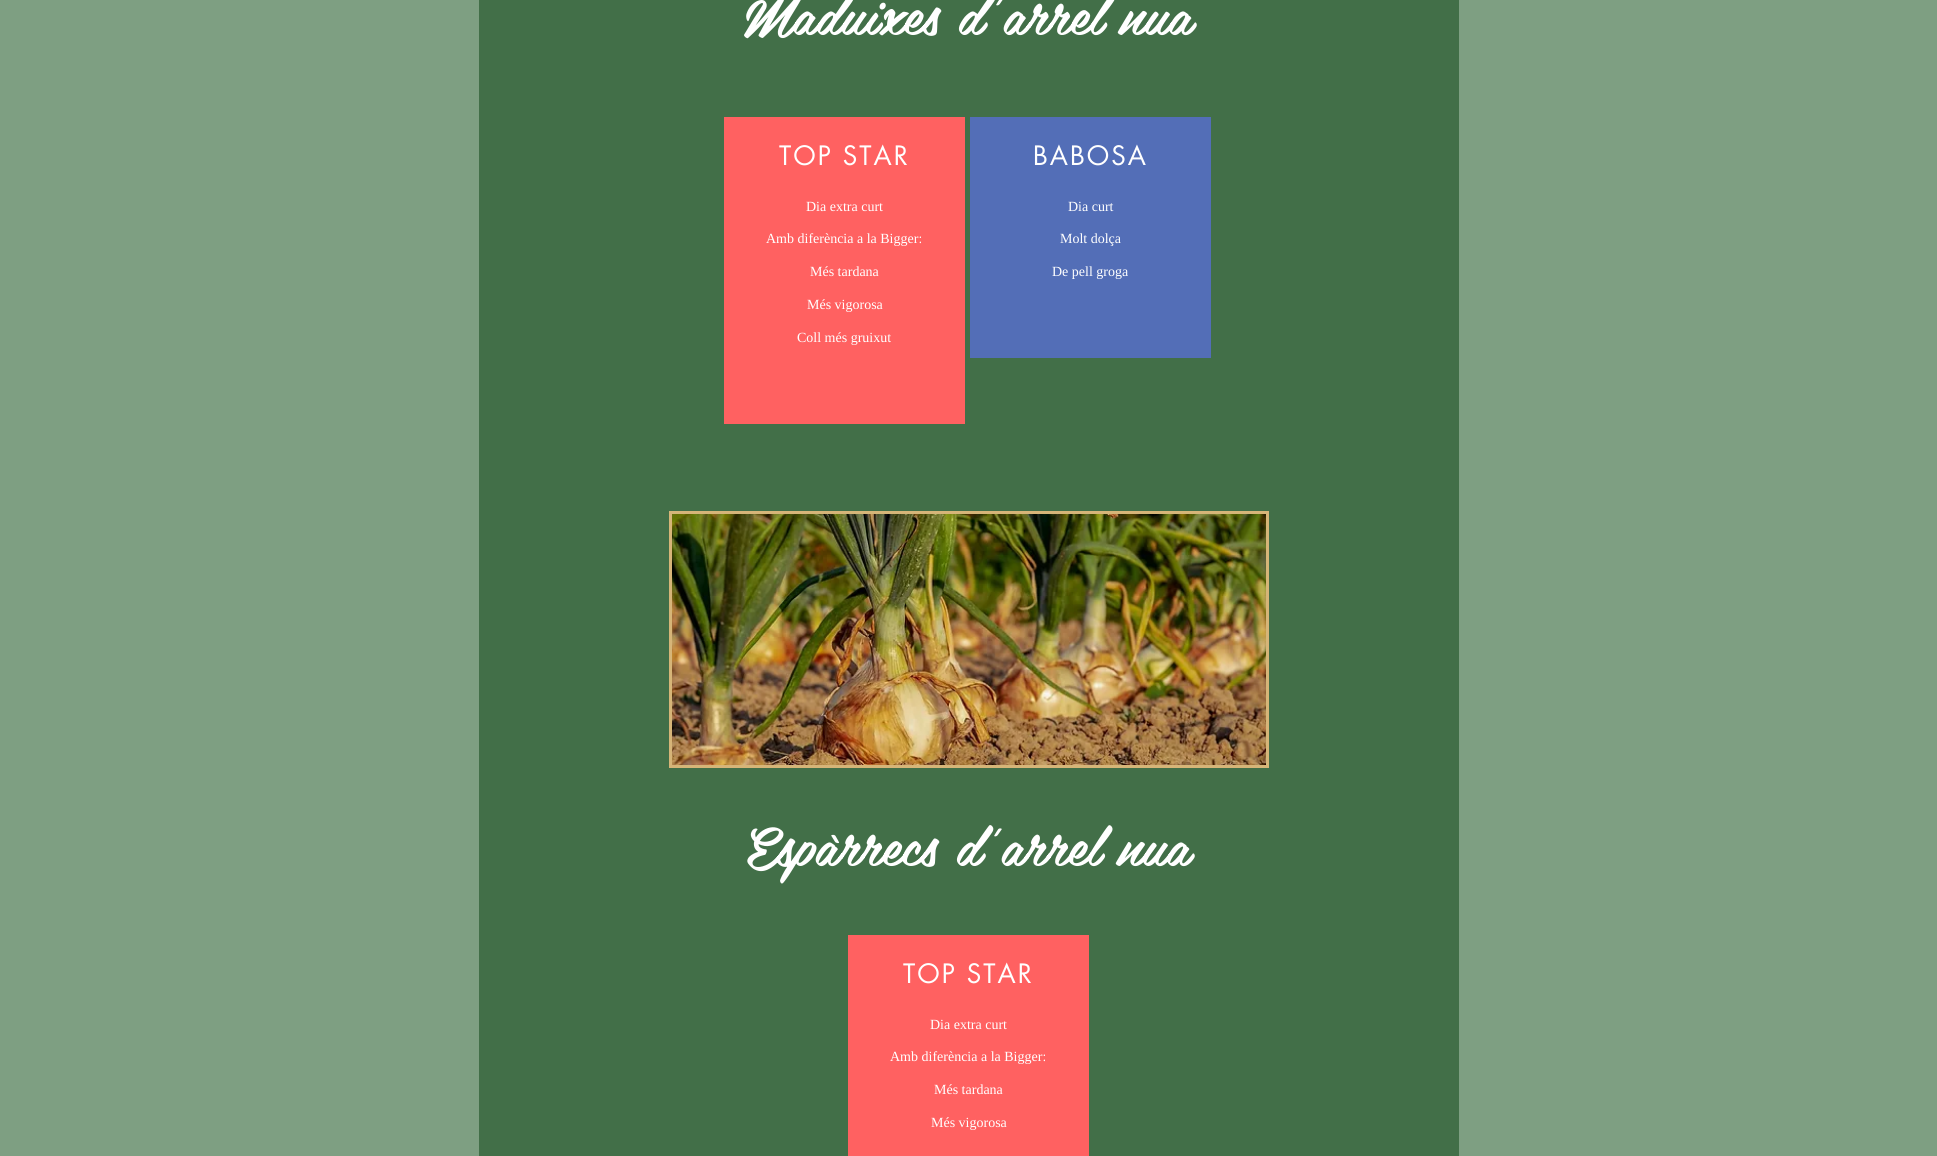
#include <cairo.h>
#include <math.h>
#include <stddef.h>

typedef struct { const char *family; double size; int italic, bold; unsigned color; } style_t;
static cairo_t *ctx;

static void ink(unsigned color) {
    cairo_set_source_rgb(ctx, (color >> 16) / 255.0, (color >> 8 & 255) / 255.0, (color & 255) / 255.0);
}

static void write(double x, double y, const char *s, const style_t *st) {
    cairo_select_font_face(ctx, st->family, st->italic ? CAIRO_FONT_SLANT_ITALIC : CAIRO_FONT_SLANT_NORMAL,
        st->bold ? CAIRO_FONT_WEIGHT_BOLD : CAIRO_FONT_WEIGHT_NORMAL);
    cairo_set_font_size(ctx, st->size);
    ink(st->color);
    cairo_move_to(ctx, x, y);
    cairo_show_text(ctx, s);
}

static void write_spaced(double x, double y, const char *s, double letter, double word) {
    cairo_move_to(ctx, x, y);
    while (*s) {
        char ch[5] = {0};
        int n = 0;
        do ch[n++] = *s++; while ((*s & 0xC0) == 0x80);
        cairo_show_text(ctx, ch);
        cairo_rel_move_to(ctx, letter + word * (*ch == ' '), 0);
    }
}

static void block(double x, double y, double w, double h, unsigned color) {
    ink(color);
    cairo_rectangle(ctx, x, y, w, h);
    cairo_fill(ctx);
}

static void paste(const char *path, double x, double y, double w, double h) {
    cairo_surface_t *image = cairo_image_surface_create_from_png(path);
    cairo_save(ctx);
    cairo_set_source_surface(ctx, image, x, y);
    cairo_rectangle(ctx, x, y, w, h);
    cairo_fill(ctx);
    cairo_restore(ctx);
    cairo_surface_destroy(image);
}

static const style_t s1 = {"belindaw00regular", 55, 0, 0, 0xffffff};
static const style_t s2 = {"Liberation Serif", 14, 0, 0, 0xffffff};

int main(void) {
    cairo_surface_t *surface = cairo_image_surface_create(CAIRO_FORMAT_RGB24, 1937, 1156);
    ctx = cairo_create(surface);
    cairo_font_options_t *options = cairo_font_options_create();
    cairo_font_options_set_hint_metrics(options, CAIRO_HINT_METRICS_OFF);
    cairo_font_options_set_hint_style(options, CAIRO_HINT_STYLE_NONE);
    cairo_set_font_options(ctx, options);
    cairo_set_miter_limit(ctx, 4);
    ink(0x7e9f82);
    cairo_paint(ctx);
    block(479, 0, 980, 1156, 0x426f48);
    write(743, 35, "Maduixes d'arrel nua", &s1);
    block(724, 117, 241, 307, 0xff6161);
    cairo_select_font_face(ctx, "futura", CAIRO_FONT_SLANT_NORMAL, CAIRO_FONT_WEIGHT_NORMAL);
    cairo_set_font_size(ctx, 26);
    ink(0xffffff);
    write_spaced(779, 165, "TOP STAR", 2, 0);
    write(806, 211, "Dia extra curt", &s2);
    write(766, 243, "Amb diferència a la Bigger:", &s2);
    write(810, 276, "Més tardana", &s2);
    write(807, 309, "Més vigorosa", &s2);
    write(797, 342, "Coll més gruixut", &s2);
    block(970, 117, 241, 241, 0x536eb7);
    cairo_select_font_face(ctx, "futura", CAIRO_FONT_SLANT_NORMAL, CAIRO_FONT_WEIGHT_NORMAL);
    cairo_set_font_size(ctx, 26);
    ink(0xffffff);
    write_spaced(1033, 165, "BABOSA", 2, 0);
    write(1068, 211, "Dia curt", &s2);
    write(1060, 243, "Molt dolça", &s2);
    write(1052, 276, "De pell groga", &s2);
    block(669, 511, 600, 257, 0xd6b578);
    paste("pic1.png", 672, 514, 594, 251);
    write(746, 866, "Espàrrecs d'arrel nua", &s1);
    block(848, 935, 241, 221, 0xff6161);
    cairo_select_font_face(ctx, "futura", CAIRO_FONT_SLANT_NORMAL, CAIRO_FONT_WEIGHT_NORMAL);
    cairo_set_font_size(ctx, 26);
    ink(0xffffff);
    write_spaced(903, 983, "TOP STAR", 2, 0);
    write(930, 1029, "Dia extra curt", &s2);
    write(890, 1061, "Amb diferència a la Bigger:", &s2);
    write(934, 1094, "Més tardana", &s2);
    write(931, 1127, "Més vigorosa", &s2);
    cairo_surface_write_to_png(surface, "screenshot.png");
    cairo_font_options_destroy(options);
    cairo_destroy(ctx);
    cairo_surface_destroy(surface);
    return 0;
}
